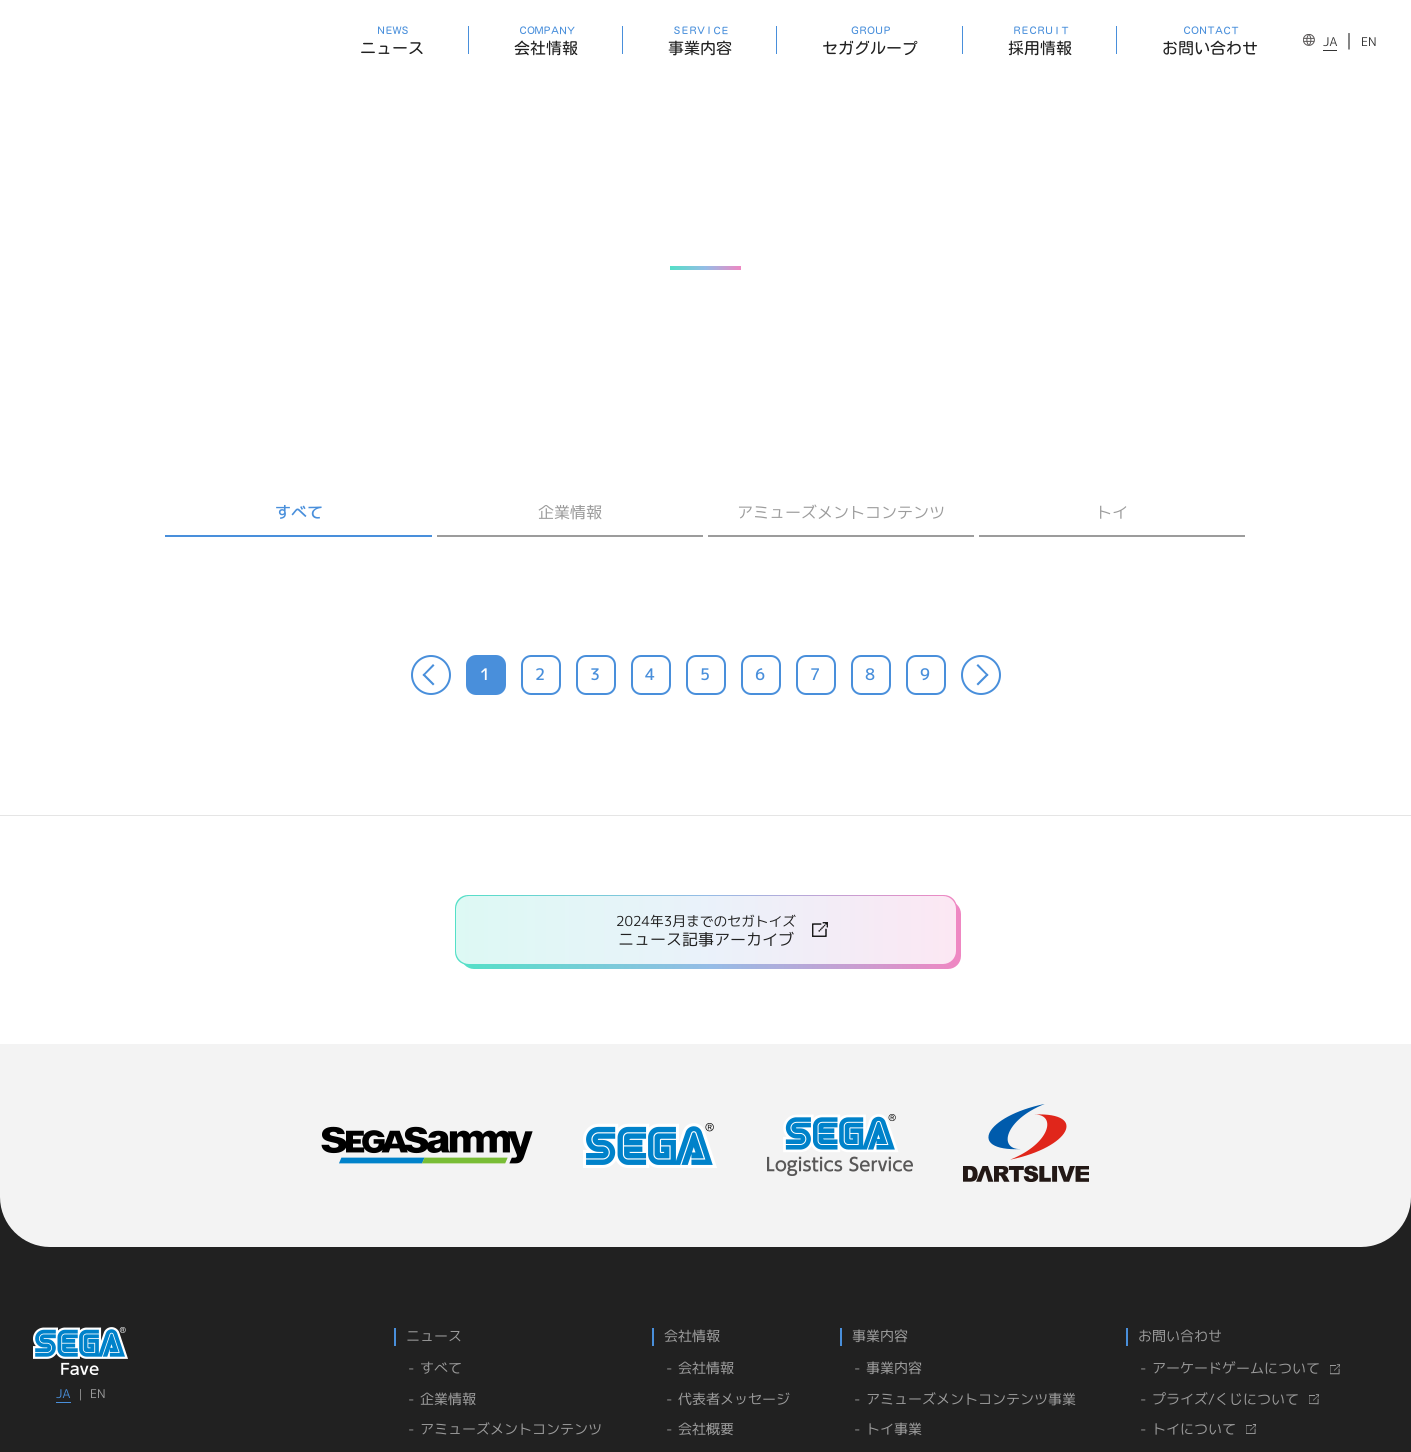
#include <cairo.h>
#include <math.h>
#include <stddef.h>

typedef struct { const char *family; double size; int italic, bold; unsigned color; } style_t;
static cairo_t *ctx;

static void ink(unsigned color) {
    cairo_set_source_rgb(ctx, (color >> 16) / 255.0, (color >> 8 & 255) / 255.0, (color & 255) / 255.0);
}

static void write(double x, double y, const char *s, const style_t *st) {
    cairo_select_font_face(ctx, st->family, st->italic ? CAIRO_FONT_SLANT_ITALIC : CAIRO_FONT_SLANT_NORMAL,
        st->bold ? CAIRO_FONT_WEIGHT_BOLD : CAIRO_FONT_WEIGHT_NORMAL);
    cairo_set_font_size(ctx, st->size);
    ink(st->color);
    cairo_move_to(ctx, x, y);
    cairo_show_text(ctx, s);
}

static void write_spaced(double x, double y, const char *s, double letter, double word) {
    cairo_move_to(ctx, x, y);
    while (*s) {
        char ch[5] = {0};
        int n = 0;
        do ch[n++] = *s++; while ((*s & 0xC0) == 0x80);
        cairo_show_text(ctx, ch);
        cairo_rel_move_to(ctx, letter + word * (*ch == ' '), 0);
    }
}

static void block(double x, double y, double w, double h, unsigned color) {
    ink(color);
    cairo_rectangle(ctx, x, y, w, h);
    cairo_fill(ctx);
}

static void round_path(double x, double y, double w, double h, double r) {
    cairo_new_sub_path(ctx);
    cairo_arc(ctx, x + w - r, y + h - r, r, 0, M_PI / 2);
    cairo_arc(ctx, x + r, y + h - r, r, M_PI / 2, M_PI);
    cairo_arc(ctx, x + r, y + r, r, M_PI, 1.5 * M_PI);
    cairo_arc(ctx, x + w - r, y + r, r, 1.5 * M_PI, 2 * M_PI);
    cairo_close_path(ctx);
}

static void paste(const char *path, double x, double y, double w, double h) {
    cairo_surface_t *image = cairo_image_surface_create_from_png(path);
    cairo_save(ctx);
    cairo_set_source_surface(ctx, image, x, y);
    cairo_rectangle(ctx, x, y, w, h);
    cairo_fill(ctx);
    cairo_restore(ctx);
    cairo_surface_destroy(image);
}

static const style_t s1 = {"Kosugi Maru", 16, 0, 0, 0x212121};
static const style_t s2 = {"M PLUS 1p", 12, 0, 0, 0x333333};
static const style_t s3 = {"M PLUS 1p", 16, 0, 0, 0x333333};
static const style_t s4 = {"M PLUS 1p Medium", 16, 0, 0, 0x498fdb};
static const style_t s5 = {"M PLUS 1p", 16, 0, 0, 0x9c9c9c};
static const style_t s6 = {"M PLUS 1p Medium", 16, 0, 0, 0xffffff};
static const style_t s7 = {"M PLUS 1p", 13.75, 0, 0, 0x212121};
static const style_t s8 = {"M PLUS 1p", 16, 0, 0, 0x212121};
static const style_t s9 = {"M PLUS 1p", 12, 0, 0, 0x498fdb};
static const style_t s10 = {"M PLUS 1p", 11, 0, 0, 0x9c9c9c};
static const style_t s11 = {"M PLUS 1p", 12, 0, 0, 0x9c9c9c};
static const style_t s12 = {"M PLUS 1p", 14, 0, 0, 0x9c9c9c};

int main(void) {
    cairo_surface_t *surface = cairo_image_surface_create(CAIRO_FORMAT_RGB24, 1411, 1452);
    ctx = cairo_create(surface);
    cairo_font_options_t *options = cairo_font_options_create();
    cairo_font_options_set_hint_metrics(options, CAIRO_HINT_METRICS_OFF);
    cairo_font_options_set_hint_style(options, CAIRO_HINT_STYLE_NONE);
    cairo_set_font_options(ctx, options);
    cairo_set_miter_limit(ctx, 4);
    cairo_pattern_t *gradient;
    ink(0xffffff);
    cairo_paint(ctx);
    cairo_select_font_face(ctx, "Kosugi Maru", CAIRO_FONT_SLANT_NORMAL, CAIRO_FONT_WEIGHT_NORMAL);
    cairo_set_font_size(ctx, 10);
    ink(0x498fdb);
    cairo_save(ctx);
    cairo_translate(ctx, 376, 34);
    cairo_rotate(ctx, 0.2 * M_PI / 180);
    write_spaced(0, 0, "ＮＥＷＳ", -2, 0);
    cairo_restore(ctx);
    cairo_save(ctx);
    cairo_translate(ctx, 360, 54);
    cairo_rotate(ctx, 0.1 * M_PI / 180);
    write(0, 0, "ニュース", &s1);
    cairo_restore(ctx);
    block(468, 26, 1, 28, 0x498fdb);
    cairo_select_font_face(ctx, "Kosugi Maru", CAIRO_FONT_SLANT_NORMAL, CAIRO_FONT_WEIGHT_NORMAL);
    cairo_set_font_size(ctx, 10);
    cairo_save(ctx);
    cairo_translate(ctx, 518, 34);
    cairo_rotate(ctx, 0.2 * M_PI / 180);
    write_spaced(0, 0, "ＣＯＭＰＡＮＹ", -2, 0);
    cairo_restore(ctx);
    cairo_save(ctx);
    cairo_translate(ctx, 514, 54);
    cairo_rotate(ctx, 0.1 * M_PI / 180);
    write(0, 0, "会社情報", &s1);
    cairo_restore(ctx);
    block(622, 26, 1, 28, 0x498fdb);
    cairo_select_font_face(ctx, "Kosugi Maru", CAIRO_FONT_SLANT_NORMAL, CAIRO_FONT_WEIGHT_NORMAL);
    cairo_set_font_size(ctx, 10);
    cairo_save(ctx);
    cairo_translate(ctx, 672, 34);
    cairo_rotate(ctx, 0.2 * M_PI / 180);
    write_spaced(0, 0, "ＳＥＲＶＩＣＥ", -2, 0);
    cairo_restore(ctx);
    cairo_save(ctx);
    cairo_translate(ctx, 668, 54);
    cairo_rotate(ctx, 0.1 * M_PI / 180);
    write(0, 0, "事業内容", &s1);
    cairo_restore(ctx);
    block(776, 26, 1, 28, 0x498fdb);
    cairo_select_font_face(ctx, "Kosugi Maru", CAIRO_FONT_SLANT_NORMAL, CAIRO_FONT_WEIGHT_NORMAL);
    cairo_set_font_size(ctx, 10);
    cairo_save(ctx);
    cairo_translate(ctx, 850, 34);
    cairo_rotate(ctx, 0.2 * M_PI / 180);
    write_spaced(0, 0, "ＧＲＯＵＰ", -2, 0);
    cairo_restore(ctx);
    cairo_save(ctx);
    cairo_translate(ctx, 822, 54);
    cairo_rotate(ctx, 0.1 * M_PI / 180);
    write(0, 0, "セガグループ", &s1);
    cairo_restore(ctx);
    block(962, 26, 1, 28, 0x498fdb);
    cairo_select_font_face(ctx, "Kosugi Maru", CAIRO_FONT_SLANT_NORMAL, CAIRO_FONT_WEIGHT_NORMAL);
    cairo_set_font_size(ctx, 10);
    cairo_save(ctx);
    cairo_translate(ctx, 1012, 34);
    cairo_rotate(ctx, 0.2 * M_PI / 180);
    write_spaced(0, 0, "ＲＥＣＲＵＩＴ", -2, 0);
    cairo_restore(ctx);
    cairo_save(ctx);
    cairo_translate(ctx, 1008, 54);
    cairo_rotate(ctx, 0.1 * M_PI / 180);
    write(0, 0, "採用情報", &s1);
    cairo_restore(ctx);
    block(1116, 26, 1, 28, 0x498fdb);
    cairo_select_font_face(ctx, "Kosugi Maru", CAIRO_FONT_SLANT_NORMAL, CAIRO_FONT_WEIGHT_NORMAL);
    cairo_set_font_size(ctx, 10);
    cairo_save(ctx);
    cairo_translate(ctx, 1182, 34);
    cairo_rotate(ctx, 0.2 * M_PI / 180);
    write_spaced(0, 0, "ＣＯＮＴＡＣＴ", -2, 0);
    cairo_restore(ctx);
    cairo_save(ctx);
    cairo_translate(ctx, 1162, 54);
    cairo_rotate(ctx, 0.1 * M_PI / 180);
    write(0, 0, "お問い合わせ", &s1);
    cairo_restore(ctx);
    paste("pic1.png", 1303, 34, 12, 12);
    write(1323, 46, "JA", &s2);
    block(1323, 50, 14, 1, 0x333333);
    write(1341, 46, "｜", &s3);
    write(1361, 46, "EN", &s2);
    gradient = cairo_pattern_create_linear(670, 268, 741, 268);
    cairo_pattern_add_color_stop_rgba(gradient, 0, 0.329, 0.878, 0.78, 1);
    cairo_pattern_add_color_stop_rgba(gradient, 0.5, 0.584, 0.737, 0.902, 1);
    cairo_pattern_add_color_stop_rgba(gradient, 1, 0.937, 0.529, 0.761, 1);
    cairo_set_source(ctx, gradient);
    cairo_pattern_destroy(gradient);
    cairo_rectangle(ctx, 670, 266, 71, 4);
    cairo_fill(ctx);
    block(165, 535, 267, 2, 0x498fdb);
    cairo_save(ctx);
    cairo_translate(ctx, 275, 518);
    cairo_rotate(ctx, 0.1 * M_PI / 180);
    write(0, 0, "すべて", &s4);
    cairo_restore(ctx);
    block(437, 535, 266, 2, 0x9c9c9c);
    cairo_save(ctx);
    cairo_translate(ctx, 538, 518);
    cairo_rotate(ctx, 0.1 * M_PI / 180);
    write(0, 0, "企業情報", &s5);
    cairo_restore(ctx);
    block(708, 535, 266, 2, 0x9c9c9c);
    cairo_save(ctx);
    cairo_translate(ctx, 737, 518);
    cairo_rotate(ctx, 0.1 * M_PI / 180);
    write(0, 0, "アミューズメントコンテンツ", &s5);
    cairo_restore(ctx);
    block(979, 535, 266, 2, 0x9c9c9c);
    cairo_save(ctx);
    cairo_translate(ctx, 1096, 518);
    cairo_rotate(ctx, 0.1 * M_PI / 180);
    write(0, 0, "トイ", &s5);
    cairo_restore(ctx);
    cairo_new_path(ctx);
    cairo_arc(ctx, 431, 675, 19, 0, 2 * M_PI);
    ink(0x498fdb);
    cairo_stroke(ctx);
    cairo_new_path(ctx);
    cairo_move_to(ctx, 424, 673.5);
    cairo_line_to(ctx, 434.5, 684);
    cairo_line_to(ctx, 433, 685.5);
    cairo_line_to(ctx, 422.5, 675);
    cairo_close_path(ctx);
    cairo_fill(ctx);
    cairo_new_path(ctx);
    cairo_move_to(ctx, 433, 664);
    cairo_line_to(ctx, 434.5, 665.5);
    cairo_line_to(ctx, 424, 676);
    cairo_line_to(ctx, 422.5, 675);
    cairo_close_path(ctx);
    cairo_fill(ctx);
    round_path(467, 656, 38, 38, 9);
    cairo_fill_preserve(ctx);
    cairo_stroke(ctx);
    write(480, 680, "1", &s6);
    round_path(522, 656, 38, 38, 9);
    ink(0x498fdb);
    cairo_stroke(ctx);
    write(535, 680, "2", &s4);
    round_path(577, 656, 38, 38, 9);
    cairo_stroke(ctx);
    write(590, 680, "3", &s4);
    round_path(632, 656, 38, 38, 9);
    cairo_stroke(ctx);
    write(645, 680, "4", &s4);
    round_path(687, 656, 38, 38, 9);
    cairo_stroke(ctx);
    write(700, 680, "5", &s4);
    round_path(742, 656, 38, 38, 9);
    cairo_stroke(ctx);
    write(755, 680, "6", &s4);
    round_path(797, 656, 38, 38, 9);
    cairo_stroke(ctx);
    write(810, 680, "7", &s4);
    round_path(852, 656, 38, 38, 9);
    cairo_stroke(ctx);
    write(865, 680, "8", &s4);
    round_path(907, 656, 38, 38, 9);
    cairo_stroke(ctx);
    write(920, 680, "9", &s4);
    cairo_new_path(ctx);
    cairo_arc(ctx, 981, 675, 19, 0, 2 * M_PI);
    cairo_stroke(ctx);
    cairo_new_path(ctx);
    cairo_move_to(ctx, 978, 664);
    cairo_line_to(ctx, 988.5, 675);
    cairo_line_to(ctx, 987, 676);
    cairo_line_to(ctx, 976.5, 665.5);
    cairo_close_path(ctx);
    cairo_fill(ctx);
    cairo_new_path(ctx);
    cairo_move_to(ctx, 987, 673.5);
    cairo_line_to(ctx, 988.5, 675);
    cairo_line_to(ctx, 978, 685.5);
    cairo_line_to(ctx, 976.5, 684);
    cairo_close_path(ctx);
    cairo_fill(ctx);
    block(0, 815, 1411, 1, 0xe5e5e5);
    gradient = cairo_pattern_create_linear(461, 935, 961, 935);
    cairo_pattern_add_color_stop_rgba(gradient, 0, 0.329, 0.878, 0.78, 1);
    cairo_pattern_add_color_stop_rgba(gradient, 0.5, 0.584, 0.737, 0.902, 1);
    cairo_pattern_add_color_stop_rgba(gradient, 1, 0.937, 0.529, 0.761, 1);
    cairo_set_source(ctx, gradient);
    cairo_pattern_destroy(gradient);
    round_path(461, 901, 500, 68, 13);
    cairo_fill(ctx);
    gradient = cairo_pattern_create_linear(455, 930, 957, 930);
    cairo_pattern_add_color_stop_rgba(gradient, 0, 0.329, 0.878, 0.78, 1);
    cairo_pattern_add_color_stop_rgba(gradient, 0.5, 0.584, 0.737, 0.902, 1);
    cairo_pattern_add_color_stop_rgba(gradient, 1, 0.937, 0.529, 0.761, 1);
    cairo_set_source(ctx, gradient);
    cairo_pattern_destroy(gradient);
    round_path(455, 895, 502, 70, 13);
    cairo_fill(ctx);
    cairo_set_source_rgba(ctx, 1, 1, 1, 0.8);
    round_path(456, 896, 500, 68, 13);
    cairo_fill(ctx);
    cairo_save(ctx);
    cairo_translate(ctx, 616, 926);
    cairo_rotate(ctx, 0.1 * M_PI / 180);
    write(0, 0, "2024年3月までのセガトイズ", &s7);
    cairo_restore(ctx);
    cairo_save(ctx);
    cairo_translate(ctx, 618, 945);
    cairo_rotate(ctx, 0.1 * M_PI / 180);
    write(0, 0, "ニュース記事アーカイブ", &s8);
    cairo_restore(ctx);
    paste("pic2.png", 812, 922, 16, 15);
    block(0, 1197, 1411, 255, 0x212121);
    ink(0xf3f3f3);
    cairo_new_path(ctx);
    cairo_move_to(ctx, 0, 1044);
    cairo_line_to(ctx, 1411, 1044);
    cairo_line_to(ctx, 1411, 1197);
    cairo_curve_to(ctx, 1411, 1224.5, 1388.5, 1247, 1361, 1247);
    cairo_line_to(ctx, 50, 1247);
    cairo_curve_to(ctx, 22.5, 1247, 0, 1224.5, 0, 1197);
    cairo_close_path(ctx);
    cairo_fill(ctx);
    paste("pic3.png", 321, 1126, 212, 38);
    paste("pic4.png", 583, 1123, 134, 45);
    paste("pic5.png", 767, 1114, 146, 62);
    paste("pic6.png", 963, 1104, 126, 78);
    paste("pic7.png", 33, 1327, 95, 48);
    write(56, 1398, "JA", &s9);
    block(56, 1402, 15, 1, 0x498fdb);
    write(75, 1398, "｜", &s10);
    write(90, 1398, "EN", &s11);
    block(394, 1328, 2, 18, 0x498fdb);
    cairo_save(ctx);
    cairo_translate(ctx, 406, 1341);
    cairo_rotate(ctx, 0.1 * M_PI / 180);
    write(0, 0, "ニュース", &s12);
    cairo_restore(ctx);
    cairo_save(ctx);
    cairo_translate(ctx, 408, 1373);
    cairo_rotate(ctx, 0.1 * M_PI / 180);
    write(0, 0, "-", &s12);
    cairo_restore(ctx);
    cairo_save(ctx);
    cairo_translate(ctx, 420, 1373);
    cairo_rotate(ctx, 0.1 * M_PI / 180);
    write(0, 0, "すべて", &s12);
    cairo_restore(ctx);
    cairo_save(ctx);
    cairo_translate(ctx, 408, 1404);
    cairo_rotate(ctx, 0.1 * M_PI / 180);
    write(0, 0, "-", &s12);
    cairo_restore(ctx);
    cairo_save(ctx);
    cairo_translate(ctx, 420, 1404);
    cairo_rotate(ctx, 0.1 * M_PI / 180);
    write(0, 0, "企業情報", &s12);
    cairo_restore(ctx);
    cairo_save(ctx);
    cairo_translate(ctx, 408, 1434);
    cairo_rotate(ctx, 0.1 * M_PI / 180);
    write(0, 0, "-", &s12);
    cairo_restore(ctx);
    cairo_save(ctx);
    cairo_translate(ctx, 420, 1434);
    cairo_rotate(ctx, 0.1 * M_PI / 180);
    write(0, 0, "アミューズメントコンテンツ", &s12);
    cairo_restore(ctx);
    block(652, 1328, 2, 18, 0x498fdb);
    cairo_save(ctx);
    cairo_translate(ctx, 664, 1341);
    cairo_rotate(ctx, 0.1 * M_PI / 180);
    write(0, 0, "会社情報", &s12);
    cairo_restore(ctx);
    cairo_save(ctx);
    cairo_translate(ctx, 666, 1373);
    cairo_rotate(ctx, 0.1 * M_PI / 180);
    write(0, 0, "-", &s12);
    cairo_restore(ctx);
    cairo_save(ctx);
    cairo_translate(ctx, 678, 1373);
    cairo_rotate(ctx, 0.1 * M_PI / 180);
    write(0, 0, "会社情報", &s12);
    cairo_restore(ctx);
    cairo_save(ctx);
    cairo_translate(ctx, 666, 1404);
    cairo_rotate(ctx, 0.1 * M_PI / 180);
    write(0, 0, "-", &s12);
    cairo_restore(ctx);
    cairo_save(ctx);
    cairo_translate(ctx, 678, 1404);
    cairo_rotate(ctx, 0.1 * M_PI / 180);
    write(0, 0, "代表者メッセージ", &s12);
    cairo_restore(ctx);
    cairo_save(ctx);
    cairo_translate(ctx, 666, 1434);
    cairo_rotate(ctx, 0.1 * M_PI / 180);
    write(0, 0, "-", &s12);
    cairo_restore(ctx);
    cairo_save(ctx);
    cairo_translate(ctx, 678, 1434);
    cairo_rotate(ctx, 0.1 * M_PI / 180);
    write(0, 0, "会社概要", &s12);
    cairo_restore(ctx);
    block(840, 1328, 2, 18, 0x498fdb);
    cairo_save(ctx);
    cairo_translate(ctx, 852, 1341);
    cairo_rotate(ctx, 0.1 * M_PI / 180);
    write(0, 0, "事業内容", &s12);
    cairo_restore(ctx);
    cairo_save(ctx);
    cairo_translate(ctx, 854, 1373);
    cairo_rotate(ctx, 0.1 * M_PI / 180);
    write(0, 0, "-", &s12);
    cairo_restore(ctx);
    cairo_save(ctx);
    cairo_translate(ctx, 866, 1373);
    cairo_rotate(ctx, 0.1 * M_PI / 180);
    write(0, 0, "事業内容", &s12);
    cairo_restore(ctx);
    cairo_save(ctx);
    cairo_translate(ctx, 854, 1404);
    cairo_rotate(ctx, 0.1 * M_PI / 180);
    write(0, 0, "-", &s12);
    cairo_restore(ctx);
    cairo_save(ctx);
    cairo_translate(ctx, 866, 1404);
    cairo_rotate(ctx, 0.1 * M_PI / 180);
    write(0, 0, "アミューズメントコンテンツ事業", &s12);
    cairo_restore(ctx);
    cairo_save(ctx);
    cairo_translate(ctx, 854, 1434);
    cairo_rotate(ctx, 0.1 * M_PI / 180);
    write(0, 0, "-", &s12);
    cairo_restore(ctx);
    cairo_save(ctx);
    cairo_translate(ctx, 866, 1434);
    cairo_rotate(ctx, 0.1 * M_PI / 180);
    write(0, 0, "トイ事業", &s12);
    cairo_restore(ctx);
    block(1126, 1328, 2, 18, 0x498fdb);
    cairo_save(ctx);
    cairo_translate(ctx, 1138, 1341);
    cairo_rotate(ctx, 0.1 * M_PI / 180);
    write(0, 0, "お問い合わせ", &s12);
    cairo_restore(ctx);
    cairo_save(ctx);
    cairo_translate(ctx, 1140, 1373);
    cairo_rotate(ctx, 0.1 * M_PI / 180);
    write(0, 0, "-", &s12);
    cairo_restore(ctx);
    cairo_save(ctx);
    cairo_translate(ctx, 1152, 1373);
    cairo_rotate(ctx, 0.1 * M_PI / 180);
    write(0, 0, "アーケードゲームについて", &s12);
    cairo_restore(ctx);
    paste("pic8.png", 1330, 1364, 10, 11);
    cairo_save(ctx);
    cairo_translate(ctx, 1140, 1404);
    cairo_rotate(ctx, 0.1 * M_PI / 180);
    write(0, 0, "-", &s12);
    cairo_restore(ctx);
    cairo_save(ctx);
    cairo_translate(ctx, 1152, 1404);
    cairo_rotate(ctx, 0.1 * M_PI / 180);
    write(0, 0, "プライズ/くじについて", &s12);
    cairo_restore(ctx);
    paste("pic9.png", 1309, 1394, 10, 11);
    cairo_save(ctx);
    cairo_translate(ctx, 1140, 1434);
    cairo_rotate(ctx, 0.1 * M_PI / 180);
    write(0, 0, "-", &s12);
    cairo_restore(ctx);
    cairo_save(ctx);
    cairo_translate(ctx, 1152, 1434);
    cairo_rotate(ctx, 0.1 * M_PI / 180);
    write(0, 0, "トイについて", &s12);
    cairo_restore(ctx);
    paste("pic10.png", 1246, 1424, 10, 10);
    cairo_surface_write_to_png(surface, "screenshot.png");
    cairo_font_options_destroy(options);
    cairo_destroy(ctx);
    cairo_surface_destroy(surface);
    return 0;
}
